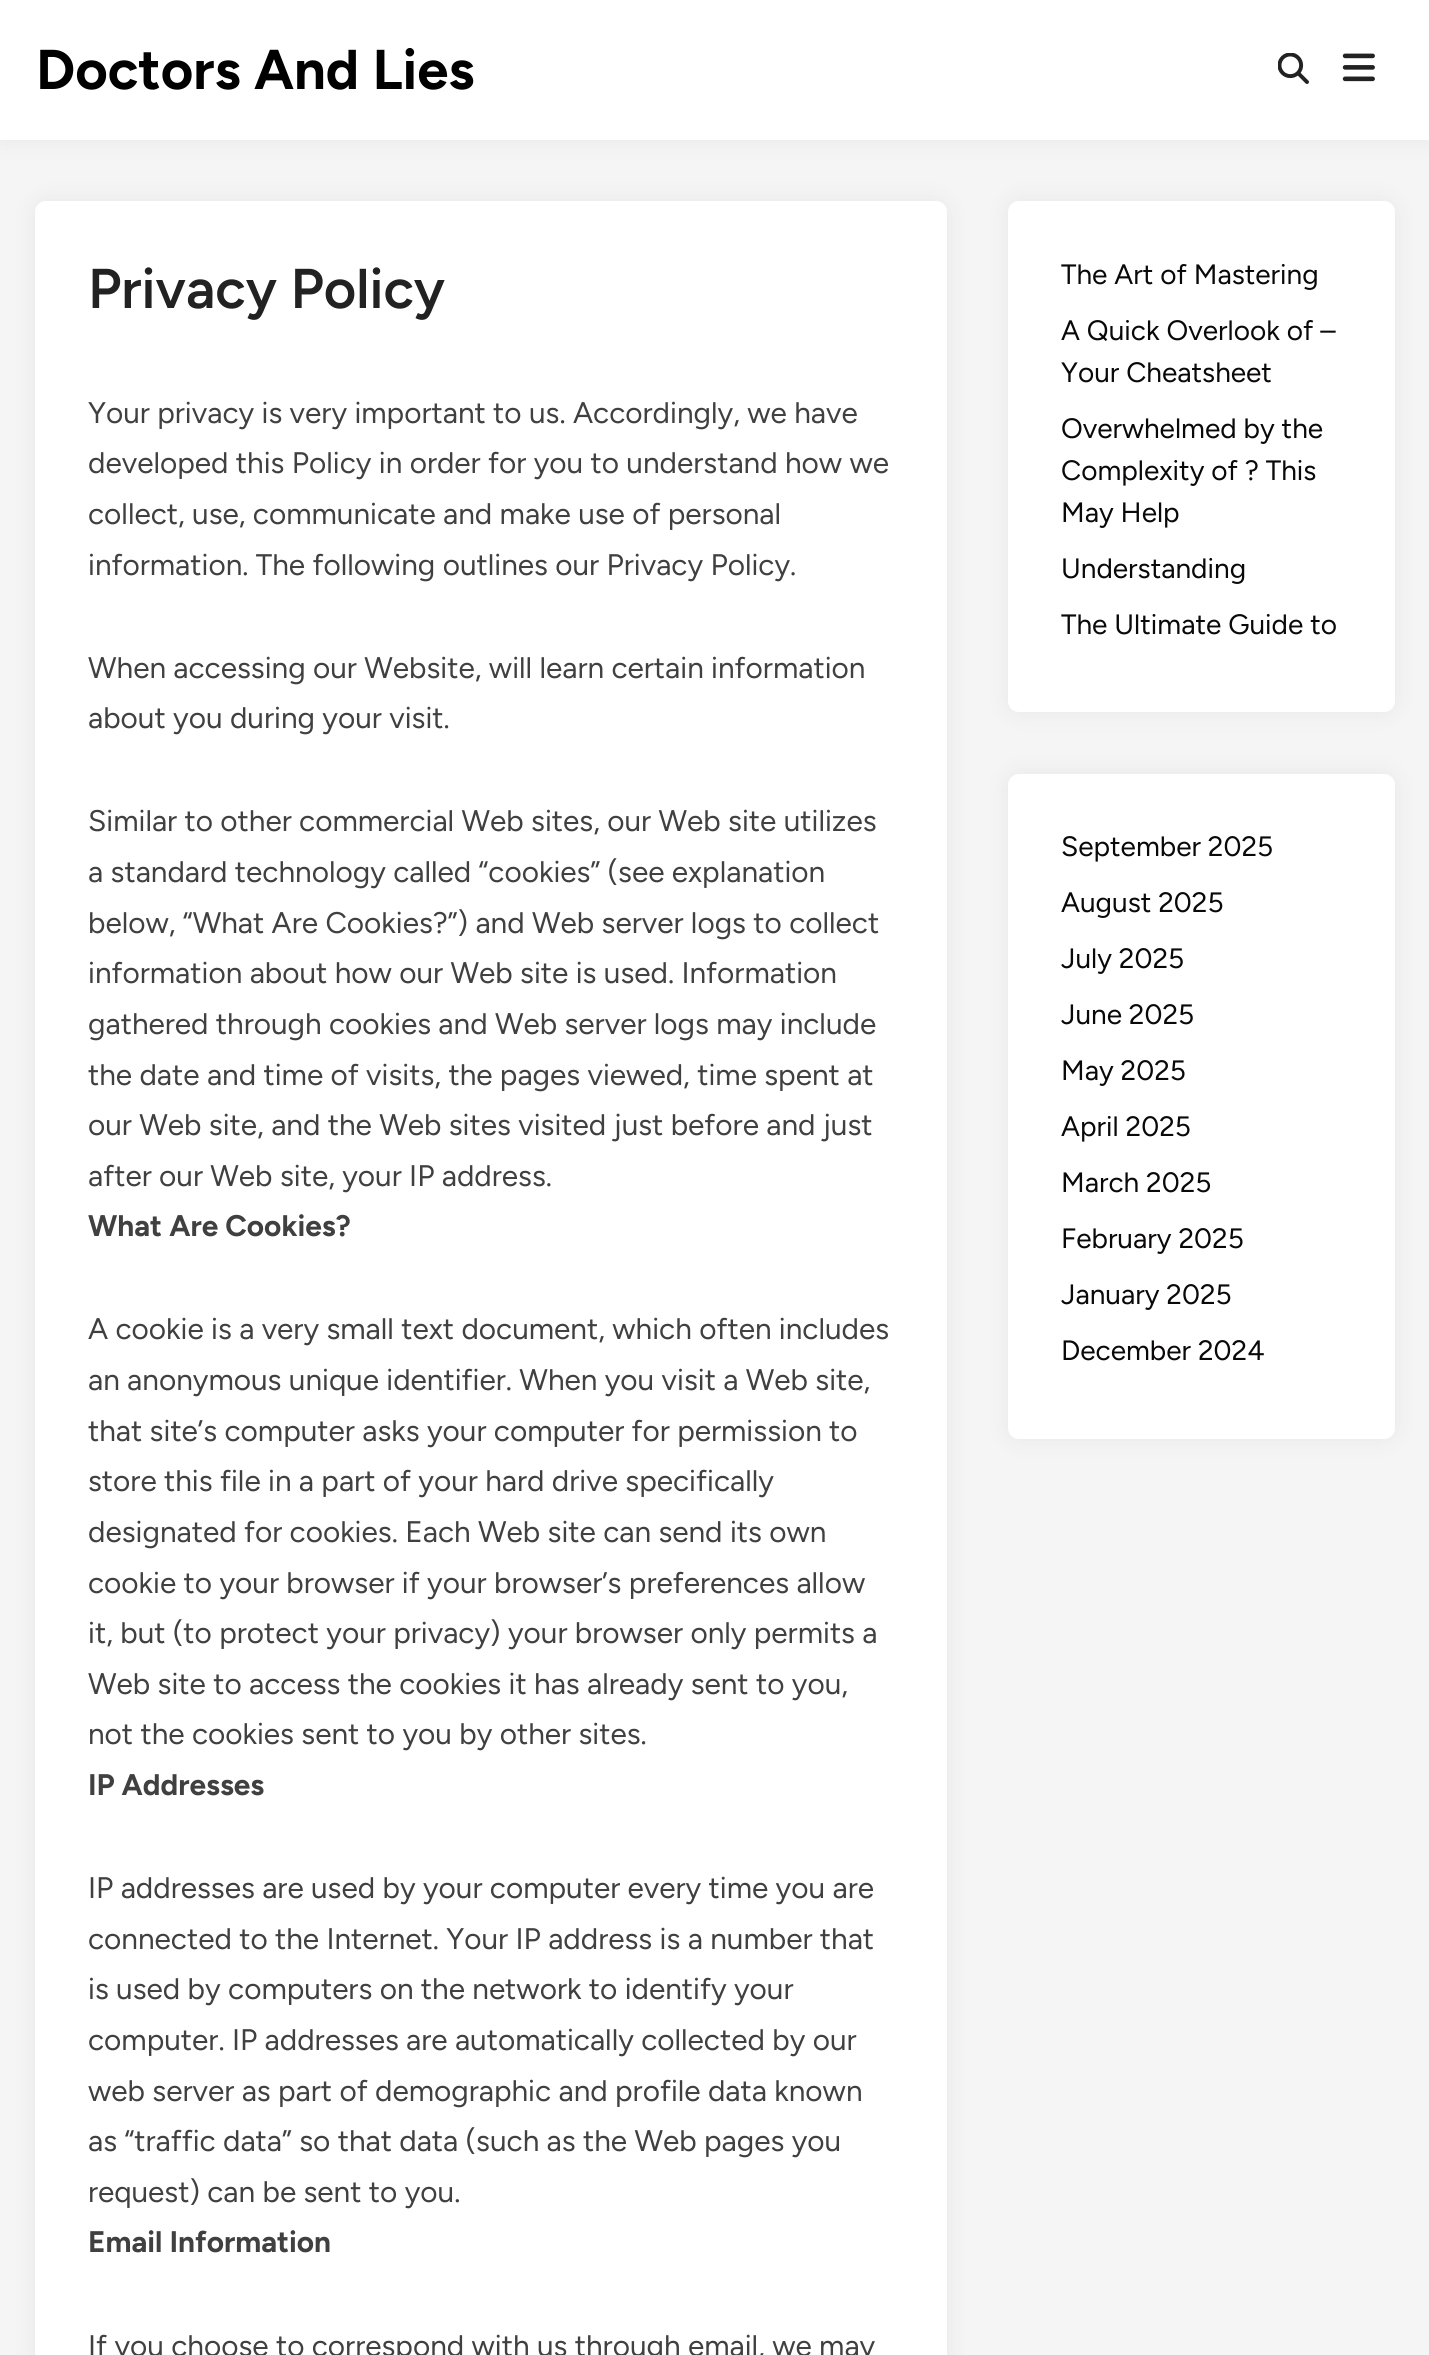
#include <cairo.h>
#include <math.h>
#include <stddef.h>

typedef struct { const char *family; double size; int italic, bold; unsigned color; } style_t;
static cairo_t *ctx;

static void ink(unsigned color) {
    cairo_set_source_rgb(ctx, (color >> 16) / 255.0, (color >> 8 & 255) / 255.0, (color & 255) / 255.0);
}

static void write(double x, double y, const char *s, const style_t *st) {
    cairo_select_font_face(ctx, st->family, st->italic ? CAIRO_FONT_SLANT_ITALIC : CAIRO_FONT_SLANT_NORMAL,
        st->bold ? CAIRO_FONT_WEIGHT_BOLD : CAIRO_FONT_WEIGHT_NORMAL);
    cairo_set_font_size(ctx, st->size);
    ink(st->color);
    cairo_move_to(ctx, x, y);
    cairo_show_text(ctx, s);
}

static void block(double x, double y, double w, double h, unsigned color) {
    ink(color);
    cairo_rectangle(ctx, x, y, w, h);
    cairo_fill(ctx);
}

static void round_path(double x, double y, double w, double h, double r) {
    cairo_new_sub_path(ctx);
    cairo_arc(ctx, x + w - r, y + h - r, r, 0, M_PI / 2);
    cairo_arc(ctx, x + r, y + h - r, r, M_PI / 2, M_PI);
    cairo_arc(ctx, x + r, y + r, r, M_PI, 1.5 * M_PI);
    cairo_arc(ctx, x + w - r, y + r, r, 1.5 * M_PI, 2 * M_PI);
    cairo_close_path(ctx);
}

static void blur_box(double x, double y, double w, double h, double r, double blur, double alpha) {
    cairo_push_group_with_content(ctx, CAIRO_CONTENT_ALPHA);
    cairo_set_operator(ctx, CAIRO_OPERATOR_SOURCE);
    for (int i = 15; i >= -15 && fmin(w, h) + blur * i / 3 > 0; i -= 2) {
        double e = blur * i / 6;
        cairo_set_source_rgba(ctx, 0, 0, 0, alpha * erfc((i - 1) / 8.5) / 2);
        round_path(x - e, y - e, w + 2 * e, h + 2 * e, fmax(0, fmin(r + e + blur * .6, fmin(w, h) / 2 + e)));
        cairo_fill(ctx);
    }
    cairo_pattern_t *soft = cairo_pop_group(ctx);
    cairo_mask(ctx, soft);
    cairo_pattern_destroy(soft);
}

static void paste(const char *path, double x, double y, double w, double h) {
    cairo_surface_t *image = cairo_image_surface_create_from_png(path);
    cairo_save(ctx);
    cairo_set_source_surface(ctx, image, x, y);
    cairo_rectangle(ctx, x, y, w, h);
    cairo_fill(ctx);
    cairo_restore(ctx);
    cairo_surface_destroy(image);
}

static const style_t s1 = {"Figtree", 56, 0, 1, 0x000000};
static const style_t s2 = {"Figtree SemiBold", 56, 0, 0, 0x222222};
static const style_t s3 = {"Figtree", 29.75, 0, 0, 0x404040};
static const style_t s4 = {"Figtree", 29.75, 0, 1, 0x404040};
static const style_t s5 = {"Figtree", 28, 0, 0, 0x0a0808};

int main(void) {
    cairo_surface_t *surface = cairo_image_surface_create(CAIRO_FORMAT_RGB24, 1429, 2355);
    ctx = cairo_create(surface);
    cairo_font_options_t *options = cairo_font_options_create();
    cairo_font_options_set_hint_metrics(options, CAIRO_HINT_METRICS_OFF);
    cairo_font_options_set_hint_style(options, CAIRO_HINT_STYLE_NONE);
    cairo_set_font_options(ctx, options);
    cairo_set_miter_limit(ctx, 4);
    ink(0xf5f5f5);
    cairo_paint(ctx);
    ink(0x000000);
    blur_box(0, 0, 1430, 140, 0, 13, 0.06);
    block(0, 0, 1429, 140, 0xffffff);
    write(36, 89, "Doctors And Lies", &s1);
    paste("pic1.png", 1278, 53, 31, 31);
    paste("pic2.png", 1342, 53, 33, 29);
    ink(0x000000);
    blur_box(35, 201, 912, 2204, 11, 13, 0.06);
    ink(0xffffff);
    round_path(35, 201, 912, 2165, 11);
    cairo_fill(ctx);
    write(88, 308, "Privacy Policy", &s2);
    write(88, 423, "Your privacy is very important to us. Accordingly, we have", &s3);
    write(88, 473, "developed this Policy in order for you to understand how we", &s3);
    write(88, 524, "collect, use, communicate and make use of personal", &s3);
    write(88, 575, "information. The following outlines our Privacy Policy.", &s3);
    write(88, 678, "When accessing our Website, will learn certain information", &s3);
    write(88, 728, "about you during your visit.", &s3);
    write(88, 831, "Similar to other commercial Web sites, our Web site utilizes", &s3);
    write(88, 882, "a standard technology called “cookies” (see explanation", &s3);
    write(88, 933, "below, “What Are Cookies?”) and Web server logs to collect", &s3);
    write(88, 983, "information about how our Web site is used. Information", &s3);
    write(88, 1034, "gathered through cookies and Web server logs may include", &s3);
    write(88, 1085, "the date and time of visits, the pages viewed, time spent at", &s3);
    write(88, 1135, "our Web site, and the Web sites visited just before and just", &s3);
    write(88, 1186, "after our Web site, your IP address.", &s3);
    write(88, 1236, "What Are Cookies?", &s4);
    write(88, 1339, "A cookie is a very small text document, which often includes", &s3);
    write(88, 1390, "an anonymous unique identifier. When you visit a Web site,", &s3);
    write(88, 1441, "that site’s computer asks your computer for permission to", &s3);
    write(88, 1491, "store this file in a part of your hard drive specifically", &s3);
    write(88, 1542, "designated for cookies. Each Web site can send its own", &s3);
    write(88, 1593, "cookie to your browser if your browser’s preferences allow", &s3);
    write(88, 1643, "it, but (to protect your privacy) your browser only permits a", &s3);
    write(88, 1694, "Web site to access the cookies it has already sent to you,", &s3);
    write(88, 1744, "not the cookies sent to you by other sites.", &s3);
    write(88, 1795, "IP Addresses", &s4);
    write(88, 1898, "IP addresses are used by your computer every time you are", &s3);
    write(88, 1949, "connected to the Internet. Your IP address is a number that", &s3);
    write(88, 1999, "is used by computers on the network to identify your", &s3);
    write(88, 2050, "computer. IP addresses are automatically collected by our", &s3);
    write(88, 2101, "web server as part of demographic and profile data known", &s3);
    write(88, 2151, "as “traffic data” so that data (such as the Web pages you", &s3);
    write(88, 2202, "request) can be sent to you.", &s3);
    write(88, 2252, "Email Information", &s4);
    write(88, 2356, "If you choose to correspond with us through email, we may", &s3);
    ink(0x000000);
    blur_box(1008, 201, 387, 511, 11, 13, 0.06);
    ink(0xffffff);
    round_path(1008, 201, 387, 511, 11);
    cairo_fill(ctx);
    write(1061, 284, "The Art of Mastering", &s5);
    write(1061, 340, "A Quick Overlook of –", &s5);
    write(1061, 382, "Your Cheatsheet", &s5);
    write(1061, 438, "Overwhelmed by the", &s5);
    write(1061, 480, "Complexity of ? This", &s5);
    write(1061, 522, "May Help", &s5);
    write(1061, 578, "Understanding", &s5);
    write(1061, 634, "The Ultimate Guide to", &s5);
    ink(0x000000);
    blur_box(1008, 774, 387, 665, 11, 13, 0.06);
    ink(0xffffff);
    round_path(1008, 774, 387, 665, 11);
    cairo_fill(ctx);
    write(1061, 856, "September 2025", &s5);
    write(1061, 912, "August 2025", &s5);
    write(1061, 968, "July 2025", &s5);
    write(1061, 1024, "June 2025", &s5);
    write(1061, 1080, "May 2025", &s5);
    write(1061, 1136, "April 2025", &s5);
    write(1061, 1192, "March 2025", &s5);
    write(1061, 1248, "February 2025", &s5);
    write(1061, 1304, "January 2025", &s5);
    write(1061, 1360, "December 2024", &s5);
    cairo_surface_write_to_png(surface, "screenshot.png");
    cairo_font_options_destroy(options);
    cairo_destroy(ctx);
    cairo_surface_destroy(surface);
    return 0;
}
